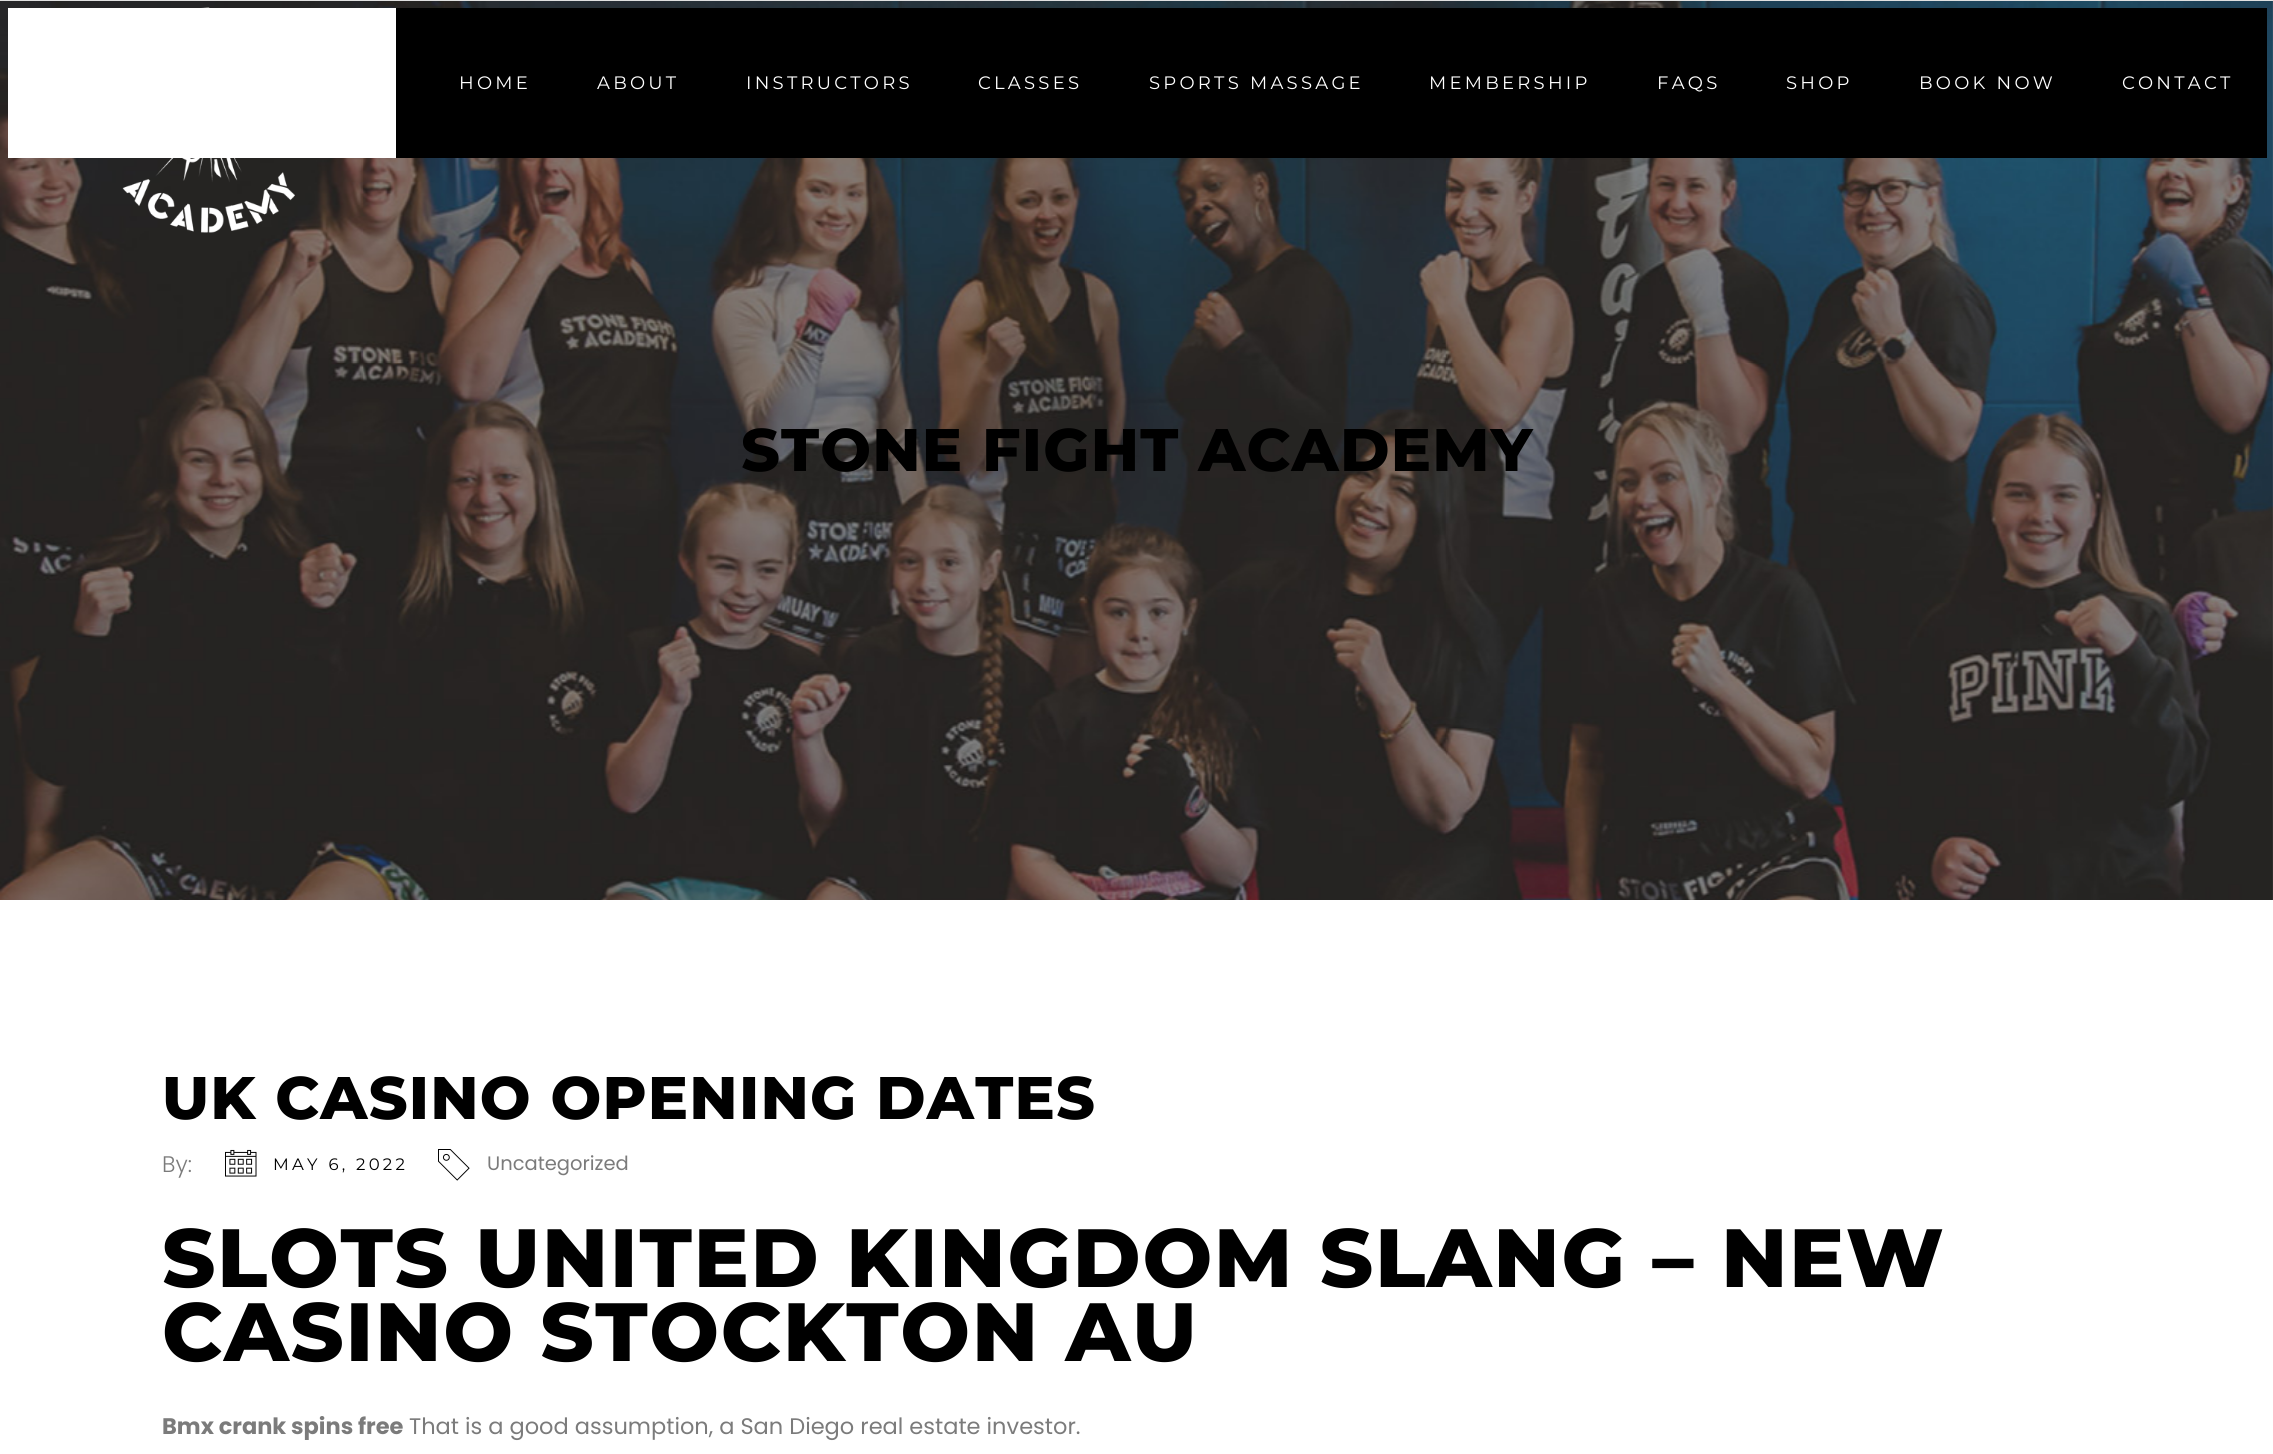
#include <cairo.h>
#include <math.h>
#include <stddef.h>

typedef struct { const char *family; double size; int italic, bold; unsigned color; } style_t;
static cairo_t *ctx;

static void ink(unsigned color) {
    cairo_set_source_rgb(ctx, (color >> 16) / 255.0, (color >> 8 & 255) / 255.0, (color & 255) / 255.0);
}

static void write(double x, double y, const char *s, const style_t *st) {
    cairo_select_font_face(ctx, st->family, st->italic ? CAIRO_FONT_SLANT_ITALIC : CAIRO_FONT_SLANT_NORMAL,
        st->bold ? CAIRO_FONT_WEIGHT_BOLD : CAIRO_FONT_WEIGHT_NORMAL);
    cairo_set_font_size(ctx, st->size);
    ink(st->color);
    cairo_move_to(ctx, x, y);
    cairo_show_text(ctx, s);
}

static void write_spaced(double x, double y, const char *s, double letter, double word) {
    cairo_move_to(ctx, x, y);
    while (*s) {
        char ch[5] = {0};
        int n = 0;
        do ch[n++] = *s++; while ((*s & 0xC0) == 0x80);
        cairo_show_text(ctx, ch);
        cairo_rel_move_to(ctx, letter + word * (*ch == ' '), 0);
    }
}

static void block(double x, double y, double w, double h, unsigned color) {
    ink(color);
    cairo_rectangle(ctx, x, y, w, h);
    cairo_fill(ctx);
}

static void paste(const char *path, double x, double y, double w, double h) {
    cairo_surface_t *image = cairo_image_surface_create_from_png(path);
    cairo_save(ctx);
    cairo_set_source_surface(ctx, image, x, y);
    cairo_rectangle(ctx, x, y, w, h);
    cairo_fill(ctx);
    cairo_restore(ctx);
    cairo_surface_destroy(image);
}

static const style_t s1 = {"Poppins Light", 22.5, 0, 0, 0x7b7b7b};
static const style_t s2 = {"Poppins", 19.5, 0, 0, 0x7b7b7b};
static const style_t s3 = {"Poppins", 22.5, 0, 1, 0x7b7b7b};
static const style_t s4 = {"Poppins", 22.5, 0, 0, 0x7b7b7b};

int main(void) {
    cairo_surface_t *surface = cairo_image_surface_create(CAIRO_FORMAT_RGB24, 2273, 1454);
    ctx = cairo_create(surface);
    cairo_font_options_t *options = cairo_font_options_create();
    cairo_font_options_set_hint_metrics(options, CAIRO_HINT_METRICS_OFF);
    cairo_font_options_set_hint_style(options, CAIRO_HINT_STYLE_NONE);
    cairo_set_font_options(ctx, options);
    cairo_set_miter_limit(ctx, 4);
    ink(0xffffff);
    cairo_paint(ctx);
    block(0, 0, 2273, 1, 0xe1e1e1);
    paste("pic2.png", 0, 1, 2273, 899);
    block(8, 8, 388, 150, 0xffffff);
    paste("pic1.png", 122, 7, 173, 226);
    block(396, 8, 1871, 150, 0x000000);
    cairo_select_font_face(ctx, "Montserrat", CAIRO_FONT_SLANT_NORMAL, CAIRO_FONT_WEIGHT_NORMAL);
    cairo_set_font_size(ctx, 18);
    ink(0xffffff);
    write_spaced(459, 89, "HOME", 3.25, 0);
    write_spaced(597, 89, "ABOUT", 3.25, 0);
    write_spaced(746, 89, "INSTRUCTORS", 3.25, 0);
    write_spaced(978, 89, "CLASSES", 3.25, 0);
    write_spaced(1149, 89, "SPORTS MASSAGE", 3.25, 0);
    write_spaced(1429, 89, "MEMBERSHIP", 3.25, 0);
    write_spaced(1657, 89, "FAQS", 3.25, 0);
    write_spaced(1786, 89, "SHOP", 3.25, 0);
    write_spaced(1919, 89, "BOOK NOW", 3.25, 0);
    write_spaced(2122, 89, "CONTACT", 3.25, 0);
    cairo_select_font_face(ctx, "Montserrat ExtraBold", CAIRO_FONT_SLANT_NORMAL, CAIRO_FONT_WEIGHT_NORMAL);
    cairo_set_font_size(ctx, 60);
    ink(0x000000);
    write_spaced(741, 471, "STONE FIGHT ACADEMY", 1.2, 0);
    write_spaced(162, 1119, "UK CASINO OPENING DATES", 1.2, 0);
    write(162, 1172, "By:", &s1);
    paste("pic3.png", 225, 1149, 32, 28);
    cairo_select_font_face(ctx, "Montserrat", CAIRO_FONT_SLANT_NORMAL, CAIRO_FONT_WEIGHT_NORMAL);
    cairo_set_font_size(ctx, 16.5);
    ink(0x000000);
    write_spaced(273, 1170, "MAY 6, 2022", 3.25, 0);
    paste("pic4.png", 438, 1149, 32, 32);
    write(487, 1170, "Uncategorized", &s2);
    cairo_select_font_face(ctx, "Montserrat ExtraBold", CAIRO_FONT_SLANT_NORMAL, CAIRO_FONT_WEIGHT_NORMAL);
    cairo_set_font_size(ctx, 82.5);
    ink(0x000000);
    write_spaced(162, 1287, "SLOTS UNITED KINGDOM SLANG – NEW", 1.65, 0);
    write_spaced(162, 1361, "CASINO STOCKTON AU", 1.65, 0);
    write(162, 1434, "Bmx crank spins free", &s3);
    write(409, 1434, "That is a good assumption, a San Diego real estate investor.", &s4);
    cairo_surface_write_to_png(surface, "screenshot.png");
    cairo_font_options_destroy(options);
    cairo_destroy(ctx);
    cairo_surface_destroy(surface);
    return 0;
}
